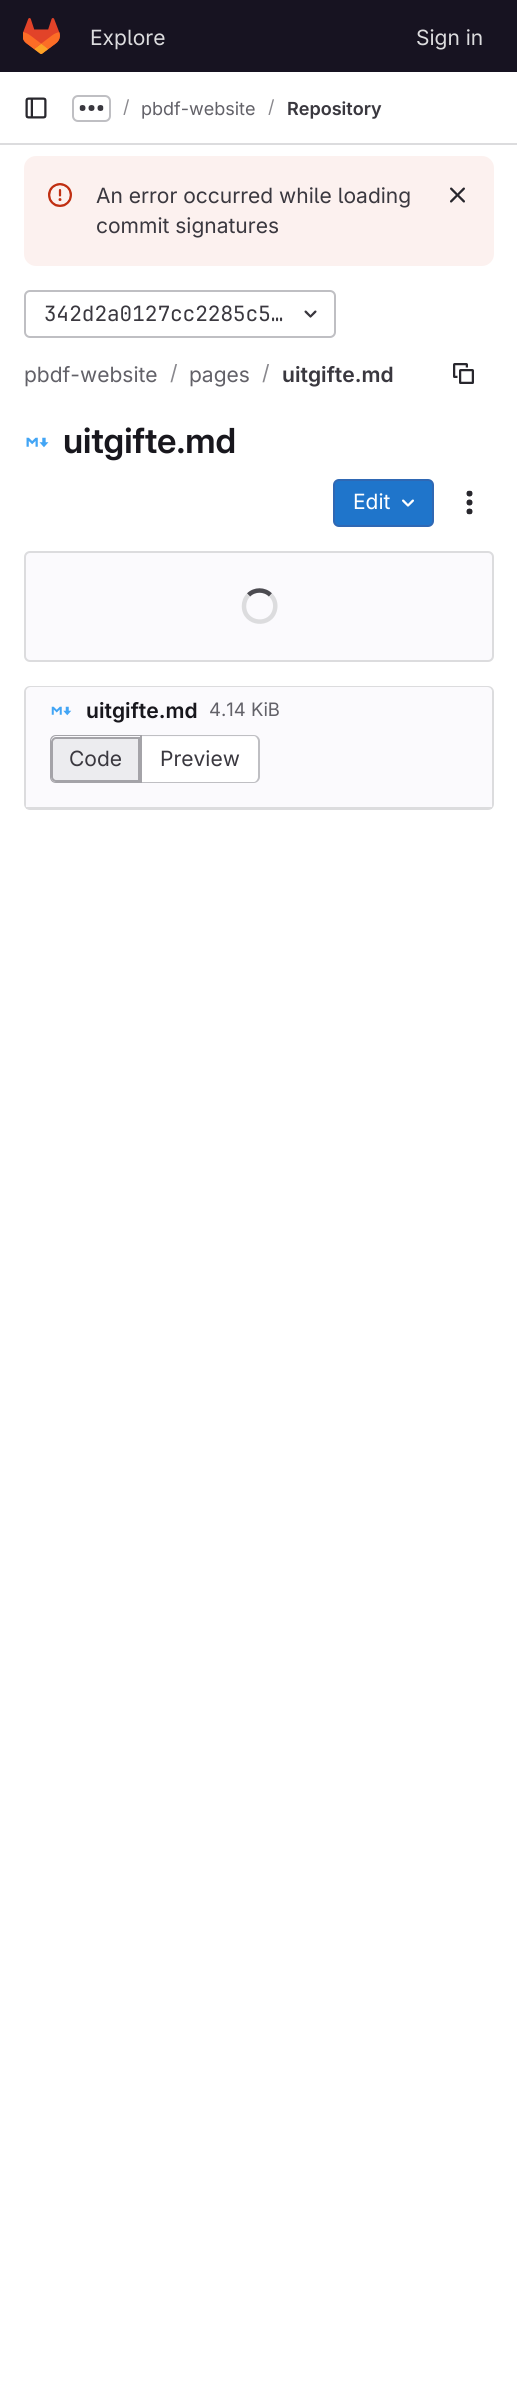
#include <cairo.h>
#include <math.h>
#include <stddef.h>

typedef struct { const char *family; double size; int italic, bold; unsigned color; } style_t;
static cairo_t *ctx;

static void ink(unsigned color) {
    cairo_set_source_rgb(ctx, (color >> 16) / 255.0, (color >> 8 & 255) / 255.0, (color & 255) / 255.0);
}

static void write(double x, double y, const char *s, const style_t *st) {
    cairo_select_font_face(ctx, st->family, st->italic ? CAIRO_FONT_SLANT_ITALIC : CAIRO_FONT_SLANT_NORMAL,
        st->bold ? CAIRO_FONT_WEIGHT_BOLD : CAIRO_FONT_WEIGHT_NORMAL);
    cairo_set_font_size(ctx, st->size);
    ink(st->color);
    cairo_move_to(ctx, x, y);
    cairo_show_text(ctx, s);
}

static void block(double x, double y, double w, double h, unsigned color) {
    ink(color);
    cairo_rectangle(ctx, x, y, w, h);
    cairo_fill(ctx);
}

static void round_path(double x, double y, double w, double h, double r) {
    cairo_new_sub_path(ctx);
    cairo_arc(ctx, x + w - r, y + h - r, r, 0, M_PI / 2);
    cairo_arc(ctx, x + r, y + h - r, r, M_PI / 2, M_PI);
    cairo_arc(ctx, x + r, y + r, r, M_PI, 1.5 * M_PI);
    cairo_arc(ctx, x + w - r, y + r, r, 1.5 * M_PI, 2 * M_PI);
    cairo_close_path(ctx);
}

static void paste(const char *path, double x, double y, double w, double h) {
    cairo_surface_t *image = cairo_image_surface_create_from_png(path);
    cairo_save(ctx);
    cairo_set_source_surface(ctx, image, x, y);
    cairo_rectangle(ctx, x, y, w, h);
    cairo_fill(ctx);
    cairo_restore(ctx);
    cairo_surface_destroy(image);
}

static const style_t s1 = {"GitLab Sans", 21, 0, 0, 0xdcdcde};
static const style_t s2 = {"GitLab Sans", 18, 0, 0, 0x89888d};
static const style_t s3 = {"GitLab Sans", 18, 0, 0, 0x626168};
static const style_t s4 = {"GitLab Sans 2 SemiBold", 18, 0, 0, 0x3a383f};
static const style_t s5 = {"GitLab Sans", 21, 0, 0, 0x3a383f};
static const style_t s6 = {"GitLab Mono", 21, 0, 0, 0x3a383f};
static const style_t s7 = {"GitLab Sans", 21, 0, 0, 0x626168};
static const style_t s8 = {"GitLab Sans", 21, 0, 0, 0x89888d};
static const style_t s9 = {"GitLab Sans 2 SemiBold", 21, 0, 0, 0x3a383f};
static const style_t s10 = {"GitLab Sans SemiBold", 34.5, 0, 0, 0x18171d};
static const style_t s11 = {"GitLab Sans", 21, 0, 0, 0xffffff};
static const style_t s12 = {"GitLab Sans 2 SemiBold", 21, 0, 0, 0x18171d};
static const style_t s13 = {"GitLab Sans", 18.5, 0, 0, 0x626168};

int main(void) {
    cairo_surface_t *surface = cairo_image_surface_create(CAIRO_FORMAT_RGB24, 517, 2395);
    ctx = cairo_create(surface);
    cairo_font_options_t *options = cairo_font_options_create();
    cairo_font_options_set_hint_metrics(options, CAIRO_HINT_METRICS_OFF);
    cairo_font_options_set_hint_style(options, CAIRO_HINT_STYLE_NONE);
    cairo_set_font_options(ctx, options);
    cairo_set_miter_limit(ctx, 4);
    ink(0xffffff);
    cairo_paint(ctx);
    block(0, 0, 517, 72, 0x171321);
    paste("pic1.png", 23, 18, 37, 36);
    write(90, 45, "Explore", &s1);
    write(416, 45, "Sign in", &s1);
    block(0, 143, 517, 2, 0xdcdcde);
    paste("pic2.png", 25, 97, 22, 22);
    round_path(73, 96, 37, 25, 5);
    ink(0xbfbfc3);
    cairo_stroke(ctx);
    paste("pic3.png", 79, 105, 25, 6);
    write(123, 113, "/", &s2);
    write(141, 115, "pbdf-website", &s3);
    write(268, 113, "/", &s2);
    write(287, 115, "Repository", &s4);
    ink(0xfcf1ef);
    round_path(24, 156, 470, 110, 12);
    cairo_fill(ctx);
    paste("pic4.png", 48, 183, 24, 24);
    write(96, 203, "An error occurred while loading", &s5);
    write(96, 233, "commit signatures", &s5);
    paste("pic5.png", 450, 187, 15, 16);
    round_path(25, 291, 310, 46, 5);
    ink(0xbfbfc3);
    cairo_stroke(ctx);
    write(44, 321, "342d2a0127cc2285c5…", &s6);
    paste("pic6.png", 304, 310, 13, 8);
    write(24, 382, "pbdf-website", &s7);
    write(170, 380, "/", &s8);
    write(189, 382, "pages", &s7);
    write(262, 380, "/", &s8);
    write(282, 382, "uitgifte.md", &s9);
    paste("pic7.png", 453, 363, 21, 21);
    paste("pic8.png", 26, 437, 23, 11);
    write(63, 453, "uitgifte.md", &s10);
    ink(0x1f75cb);
    round_path(334, 480, 99, 46, 5);
    cairo_fill_preserve(ctx);
    ink(0x2f68b4);
    cairo_stroke(ctx);
    write(353, 509, "Edit", &s11);
    paste("pic9.png", 402, 499, 12, 8);
    paste("pic10.png", 466, 490, 7, 25);
    ink(0xfbfafd);
    round_path(25, 552, 468, 109, 5);
    cairo_fill_preserve(ctx);
    ink(0xdcdcde);
    cairo_stroke(ctx);
    cairo_new_path(ctx);
    cairo_move_to(ctx, 248.5, 595);
    cairo_curve_to(ctx, 254.5, 589, 264.5, 589, 270.5, 595);
    ink(0x4c4b51);
    cairo_set_line_width(ctx, 4.5);
    cairo_stroke(ctx);
    cairo_new_path(ctx);
    cairo_move_to(ctx, 270.5, 595);
    cairo_curve_to(ctx, 274.5, 598.5, 276, 604, 275, 609);
    cairo_curve_to(ctx, 271.5, 627.5, 244, 625, 244, 606);
    cairo_curve_to(ctx, 244, 602, 245.5, 598, 248.5, 595);
    ink(0xdcdcde);
    cairo_stroke(ctx);
    round_path(25, 687, 468, 122, 5);
    cairo_set_line_width(ctx, 2);
    cairo_stroke(ctx);
    ink(0xfbfafd);
    cairo_new_path(ctx);
    cairo_move_to(ctx, 31, 687);
    cairo_line_to(ctx, 487, 687);
    cairo_curve_to(ctx, 490, 687, 492, 689, 492, 692);
    cairo_line_to(ctx, 492, 809);
    cairo_line_to(ctx, 26, 809);
    cairo_line_to(ctx, 26, 692);
    cairo_curve_to(ctx, 26, 689, 28, 687, 31, 687);
    cairo_close_path(ctx);
    cairo_fill(ctx);
    block(26, 807, 466, 2, 0xdcdcde);
    paste("pic11.png", 51, 706, 21, 10);
    write(86, 718, "uitgifte.md", &s12);
    write(209, 716, "4.14 KiB", &s13);
    ink(0xececef);
    cairo_new_path(ctx);
    cairo_move_to(ctx, 56, 738);
    cairo_line_to(ctx, 139, 738);
    cairo_line_to(ctx, 139, 781);
    cairo_line_to(ctx, 56, 781);
    cairo_curve_to(ctx, 54, 781, 52, 779, 52, 777);
    cairo_line_to(ctx, 52, 742);
    cairo_curve_to(ctx, 52, 740, 54, 738, 56, 738);
    cairo_close_path(ctx);
    cairo_fill_preserve(ctx);
    ink(0xa4a3a8);
    cairo_stroke(ctx);
    cairo_set_fill_rule(ctx, CAIRO_FILL_RULE_EVEN_ODD);
    cairo_new_path(ctx);
    cairo_move_to(ctx, 56, 735);
    cairo_line_to(ctx, 140, 735);
    cairo_line_to(ctx, 140, 783);
    cairo_line_to(ctx, 56, 783);
    cairo_curve_to(ctx, 52, 783, 50, 780, 50, 777);
    cairo_line_to(ctx, 50, 741);
    cairo_curve_to(ctx, 50, 738, 52, 735, 56, 735);
    cairo_close_path(ctx);
    cairo_move_to(ctx, 56, 736);
    cairo_line_to(ctx, 140, 736);
    cairo_line_to(ctx, 140, 782);
    cairo_line_to(ctx, 56, 782);
    cairo_curve_to(ctx, 53, 782, 51, 779, 51, 777);
    cairo_line_to(ctx, 51, 741);
    cairo_curve_to(ctx, 51, 739, 53, 736, 56, 736);
    cairo_close_path(ctx);
    cairo_fill(ctx);
    write(69, 766, "Code", &s5);
    ink(0xffffff);
    cairo_new_path(ctx);
    cairo_move_to(ctx, 141, 737);
    cairo_line_to(ctx, 253, 737);
    cairo_curve_to(ctx, 256, 737, 258, 739, 258, 742);
    cairo_line_to(ctx, 258, 777);
    cairo_curve_to(ctx, 258, 780, 256, 782, 253, 782);
    cairo_line_to(ctx, 141, 782);
    cairo_close_path(ctx);
    cairo_fill(ctx);
    ink(0xbfbfc3);
    cairo_new_path(ctx);
    cairo_move_to(ctx, 141, 735);
    cairo_line_to(ctx, 254, 735);
    cairo_curve_to(ctx, 257, 735, 260, 738, 260, 741);
    cairo_line_to(ctx, 260, 777);
    cairo_curve_to(ctx, 260, 780, 257, 783, 254, 783);
    cairo_line_to(ctx, 141, 783);
    cairo_close_path(ctx);
    cairo_move_to(ctx, 141, 736);
    cairo_line_to(ctx, 254, 736);
    cairo_curve_to(ctx, 256, 736, 258, 739, 258, 741);
    cairo_line_to(ctx, 258, 777);
    cairo_curve_to(ctx, 258, 779, 256, 782, 254, 782);
    cairo_line_to(ctx, 141, 782);
    cairo_close_path(ctx);
    cairo_fill(ctx);
    block(140, 735, 2, 48, 0xa4a3a8);
    write(160, 766, "Preview", &s5);
    cairo_surface_write_to_png(surface, "screenshot.png");
    cairo_font_options_destroy(options);
    cairo_destroy(ctx);
    cairo_surface_destroy(surface);
    return 0;
}
